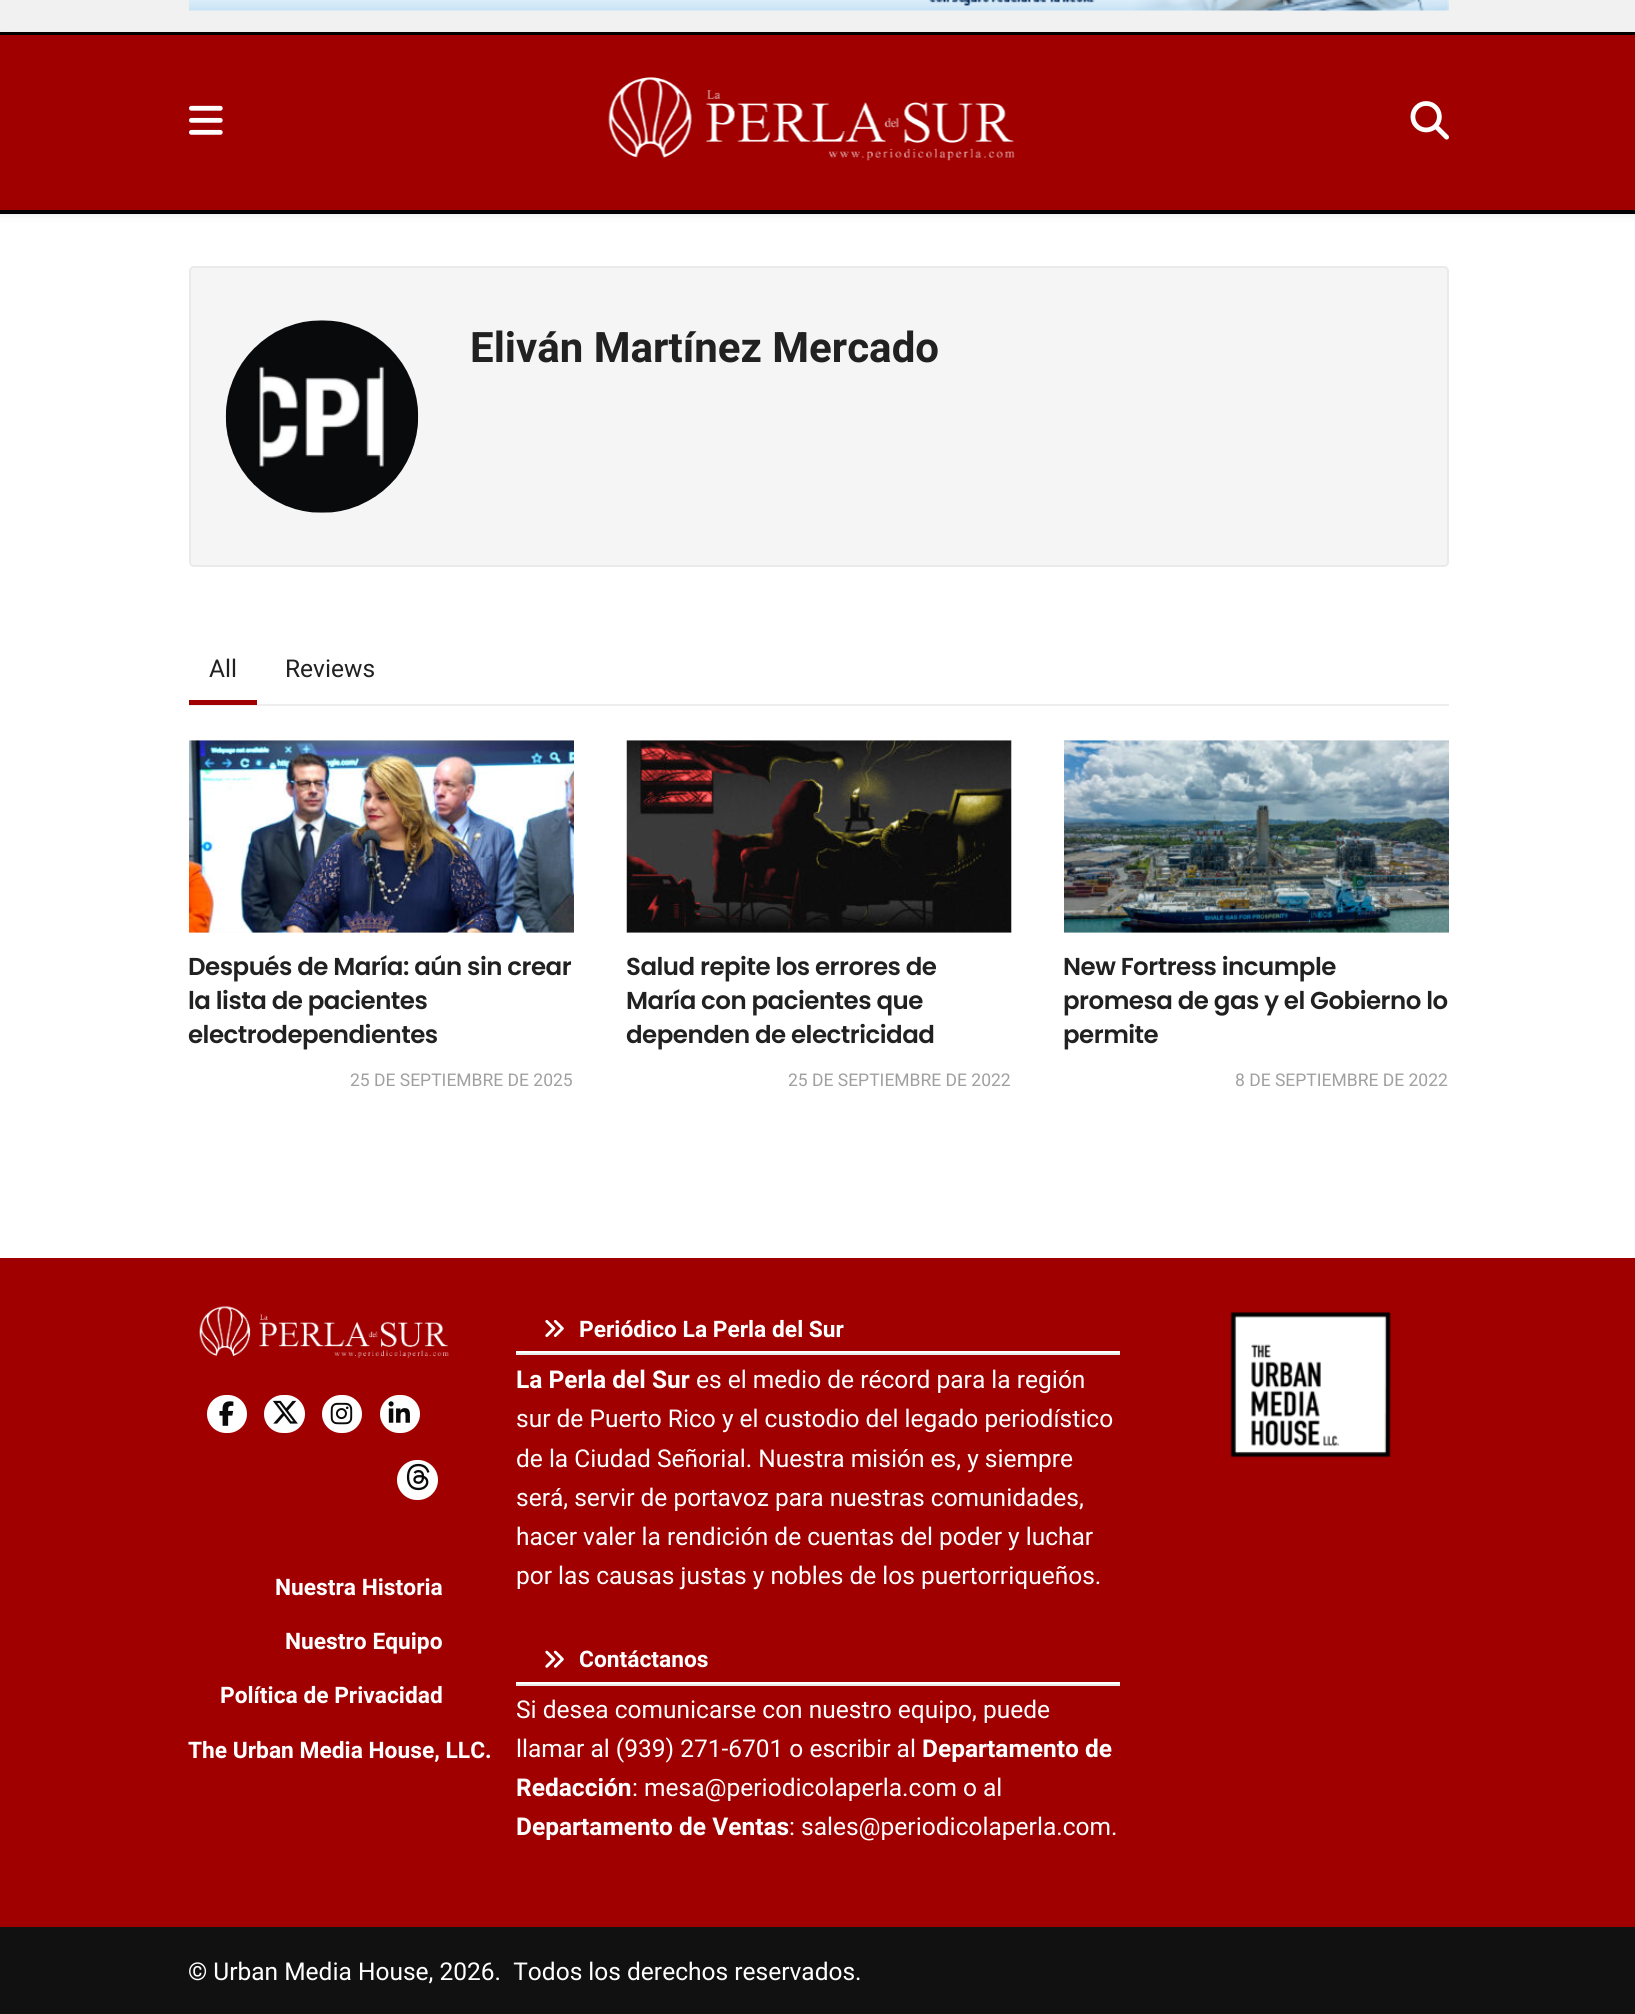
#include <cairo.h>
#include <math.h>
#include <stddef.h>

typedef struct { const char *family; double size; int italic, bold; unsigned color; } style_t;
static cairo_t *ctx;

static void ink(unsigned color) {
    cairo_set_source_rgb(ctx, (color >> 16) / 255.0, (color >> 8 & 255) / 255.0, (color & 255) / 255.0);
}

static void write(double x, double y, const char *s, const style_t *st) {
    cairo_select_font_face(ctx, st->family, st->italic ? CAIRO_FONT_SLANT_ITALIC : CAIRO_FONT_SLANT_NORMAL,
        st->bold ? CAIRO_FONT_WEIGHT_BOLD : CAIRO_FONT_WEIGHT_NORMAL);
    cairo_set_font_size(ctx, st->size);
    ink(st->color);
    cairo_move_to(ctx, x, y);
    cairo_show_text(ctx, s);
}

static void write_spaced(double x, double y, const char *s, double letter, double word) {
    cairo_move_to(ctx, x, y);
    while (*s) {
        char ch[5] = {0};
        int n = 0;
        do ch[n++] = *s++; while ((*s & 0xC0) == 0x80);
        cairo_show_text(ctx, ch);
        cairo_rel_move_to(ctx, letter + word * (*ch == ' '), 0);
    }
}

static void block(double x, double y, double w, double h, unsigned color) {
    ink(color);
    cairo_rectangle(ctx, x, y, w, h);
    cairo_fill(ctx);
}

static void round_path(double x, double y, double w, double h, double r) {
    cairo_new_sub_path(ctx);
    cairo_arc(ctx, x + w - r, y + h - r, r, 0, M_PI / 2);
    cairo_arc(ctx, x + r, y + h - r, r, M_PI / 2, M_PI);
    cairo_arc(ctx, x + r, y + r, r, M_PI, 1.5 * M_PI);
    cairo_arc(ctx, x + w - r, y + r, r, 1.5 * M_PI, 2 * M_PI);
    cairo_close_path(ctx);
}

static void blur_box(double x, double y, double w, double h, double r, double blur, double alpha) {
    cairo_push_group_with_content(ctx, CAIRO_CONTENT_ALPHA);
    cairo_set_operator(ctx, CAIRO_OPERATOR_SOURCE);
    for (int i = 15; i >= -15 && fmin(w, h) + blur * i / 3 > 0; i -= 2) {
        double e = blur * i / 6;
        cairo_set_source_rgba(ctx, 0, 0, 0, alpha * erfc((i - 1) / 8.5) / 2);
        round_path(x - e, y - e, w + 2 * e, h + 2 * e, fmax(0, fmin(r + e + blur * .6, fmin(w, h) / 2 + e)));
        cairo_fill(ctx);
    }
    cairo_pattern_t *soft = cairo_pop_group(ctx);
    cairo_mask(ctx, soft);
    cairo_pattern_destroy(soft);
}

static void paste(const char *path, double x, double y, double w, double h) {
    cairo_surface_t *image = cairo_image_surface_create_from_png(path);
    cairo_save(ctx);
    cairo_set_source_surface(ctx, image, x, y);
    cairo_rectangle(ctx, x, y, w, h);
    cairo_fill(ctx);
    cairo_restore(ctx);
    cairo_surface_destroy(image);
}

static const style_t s1 = {"Heebo", 42, 0, 1, 0x212121};
static const style_t s2 = {"Heebo", 24.5, 0, 0, 0x212121};
static const style_t s3 = {"Heebo", 17.5, 0, 0, 0xa0a0a0};
static const style_t s4 = {"Heebo", 22.75, 0, 1, 0xffffff};
static const style_t s5 = {"Heebo", 24.5, 0, 1, 0xffffff};
static const style_t s6 = {"Heebo", 24.5, 0, 0, 0xffffff};

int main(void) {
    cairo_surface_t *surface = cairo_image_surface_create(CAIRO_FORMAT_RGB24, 1635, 2014);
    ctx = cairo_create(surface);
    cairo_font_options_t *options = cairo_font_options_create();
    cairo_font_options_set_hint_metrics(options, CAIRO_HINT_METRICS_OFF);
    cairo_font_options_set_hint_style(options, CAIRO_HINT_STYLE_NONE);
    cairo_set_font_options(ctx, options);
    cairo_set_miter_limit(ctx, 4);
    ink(0xffffff);
    cairo_paint(ctx);
    block(0, 0, 1635, 32, 0xf0f1f0);
    paste("pic1.png", 189, 0, 1260, 11);
    block(0, 32, 1635, 3, 0x000000);
    block(0, 210, 1635, 4, 0x000000);
    ink(0x000000);
    blur_box(0, 39, 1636, 175, 0, 5, 0.1);
    block(0, 35, 1635, 175, 0xa00000);
    paste("pic2.png", 189, 105, 34, 30);
    paste("pic3.png", 608, 77, 407, 84);
    paste("pic4.png", 1410, 101, 39, 39);
    ink(0xf5f5f5);
    round_path(190, 267, 1258, 299, 4);
    cairo_fill_preserve(ctx);
    ink(0xeaeaea);
    cairo_stroke(ctx);
    paste("pic5.png", 225, 320, 194, 193);
    write(470, 362, "Eliván Martínez Mercado", &s1);
    block(189, 704, 1260, 2, 0xeeeeee);
    write(209, 677, "All", &s2);
    block(189, 700, 68, 5, 0xa00000);
    write(285, 677, "Reviews", &s2);
    block(189, 740, 385, 193, 0xf7f7f7);
    paste("pic6.png", 189, 740, 385, 193);
    cairo_select_font_face(ctx, "Poppins SemiBold", CAIRO_FONT_SLANT_NORMAL, CAIRO_FONT_WEIGHT_NORMAL);
    ink(0x212121);
    write_spaced(188, 975, "Después de María: aún sin crear", -0.5, 0);
    write_spaced(188, 1009, "la lista de pacientes", -0.5, 0);
    write_spaced(188, 1043, "electrodependientes", -0.5, 0);
    write(350, 1086, "25 DE SEPTIEMBRE DE 2025", &s3);
    block(627, 740, 385, 193, 0xf7f7f7);
    paste("pic7.png", 626, 740, 386, 193);
    cairo_select_font_face(ctx, "Poppins SemiBold", CAIRO_FONT_SLANT_NORMAL, CAIRO_FONT_WEIGHT_NORMAL);
    cairo_set_font_size(ctx, 24.5);
    ink(0x212121);
    write_spaced(626, 975, "Salud repite los errores de", -0.5, 0);
    write_spaced(626, 1009, "María con pacientes que", -0.5, 0);
    write_spaced(626, 1043, "dependen de electricidad", -0.5, 0);
    write(788, 1086, "25 DE SEPTIEMBRE DE 2022", &s3);
    block(1064, 740, 385, 193, 0xf7f7f7);
    paste("pic8.png", 1064, 740, 385, 193);
    cairo_select_font_face(ctx, "Poppins SemiBold", CAIRO_FONT_SLANT_NORMAL, CAIRO_FONT_WEIGHT_NORMAL);
    cairo_set_font_size(ctx, 24.5);
    ink(0x212121);
    write_spaced(1063, 975, "New Fortress incumple", -0.5, 0);
    write_spaced(1063, 1009, "promesa de gas y el Gobierno lo", -0.5, 0);
    write_spaced(1063, 1043, "permite", -0.5, 0);
    write(1235, 1086, "8 DE SEPTIEMBRE DE 2022", &s3);
    block(0, 1258, 1635, 669, 0xa00000);
    paste("pic9.png", 199, 1306, 250, 52);
    ink(0xffffff);
    round_path(207, 1395, 40, 38, 19);
    cairo_fill(ctx);
    paste("pic10.png", 219, 1401, 15, 25);
    round_path(264, 1395, 41, 38, 19);
    cairo_fill(ctx);
    paste("pic11.png", 272, 1400, 26, 24);
    round_path(322, 1395, 40, 38, 19);
    cairo_fill(ctx);
    paste("pic12.png", 330, 1402, 23, 23);
    round_path(380, 1395, 40, 38, 19);
    cairo_fill(ctx);
    paste("pic13.png", 388, 1401, 22, 22);
    round_path(397, 1460, 41, 40, 20);
    cairo_fill(ctx);
    paste("pic14.png", 406, 1463, 24, 28);
    write(275, 1595, "Nuestra Historia", &s4);
    write(285, 1649, "Nuestro Equipo", &s4);
    write(220, 1703, "Política de Privacidad", &s4);
    write(188, 1758, "The Urban Media House, LLC.", &s4);
    block(516, 1351, 604, 2, 0xffffff);
    paste("pic15.png", 545, 1319, 19, 18);
    write(579, 1337, "Periódico La Perla del Sur", &s4);
    block(516, 1353, 604, 2, 0xebebeb);
    write(516, 1388, "La Perla del Sur", &s5);
    write(696, 1388, "es el medio de récord para la región", &s6);
    write(516, 1427, "sur de Puerto Rico y el custodio del legado periodístico", &s6);
    write(516, 1467, "de la Ciudad Señorial. Nuestra misión es, y siempre", &s6);
    write(516, 1506, "será, servir de portavoz para nuestras comunidades,", &s6);
    write(516, 1545, "hacer valer la rendición de cuentas del poder y luchar", &s6);
    write(516, 1584, "por las causas justas y nobles de los puertorriqueños.", &s6);
    block(516, 1682, 604, 2, 0xffffff);
    paste("pic16.png", 545, 1650, 19, 18);
    write(579, 1667, "Contáctanos", &s4);
    block(516, 1684, 604, 2, 0xebebeb);
    write(516, 1718, "Si desea comunicarse con nuestro equipo, puede", &s6);
    write(516, 1757, "llamar al (939) 271-6701 o escribir al", &s6);
    write(922, 1757, "Departamento de", &s5);
    write(516, 1796, "Redacción", &s5);
    write(632, 1796, ": mesa@periodicolaperla.com o al", &s6);
    write(516, 1835, "Departamento de Ventas", &s5);
    write(789, 1835, ": sales@periodicolaperla.com.", &s6);
    paste("pic17.png", 1230, 1312, 161, 146);
    block(0, 1927, 1635, 87, 0x111111);
    write(188, 1980, "© Urban Media House, 2026.  Todos los derechos reservados.", &s6);
    cairo_surface_write_to_png(surface, "screenshot.png");
    cairo_font_options_destroy(options);
    cairo_destroy(ctx);
    cairo_surface_destroy(surface);
    return 0;
}
